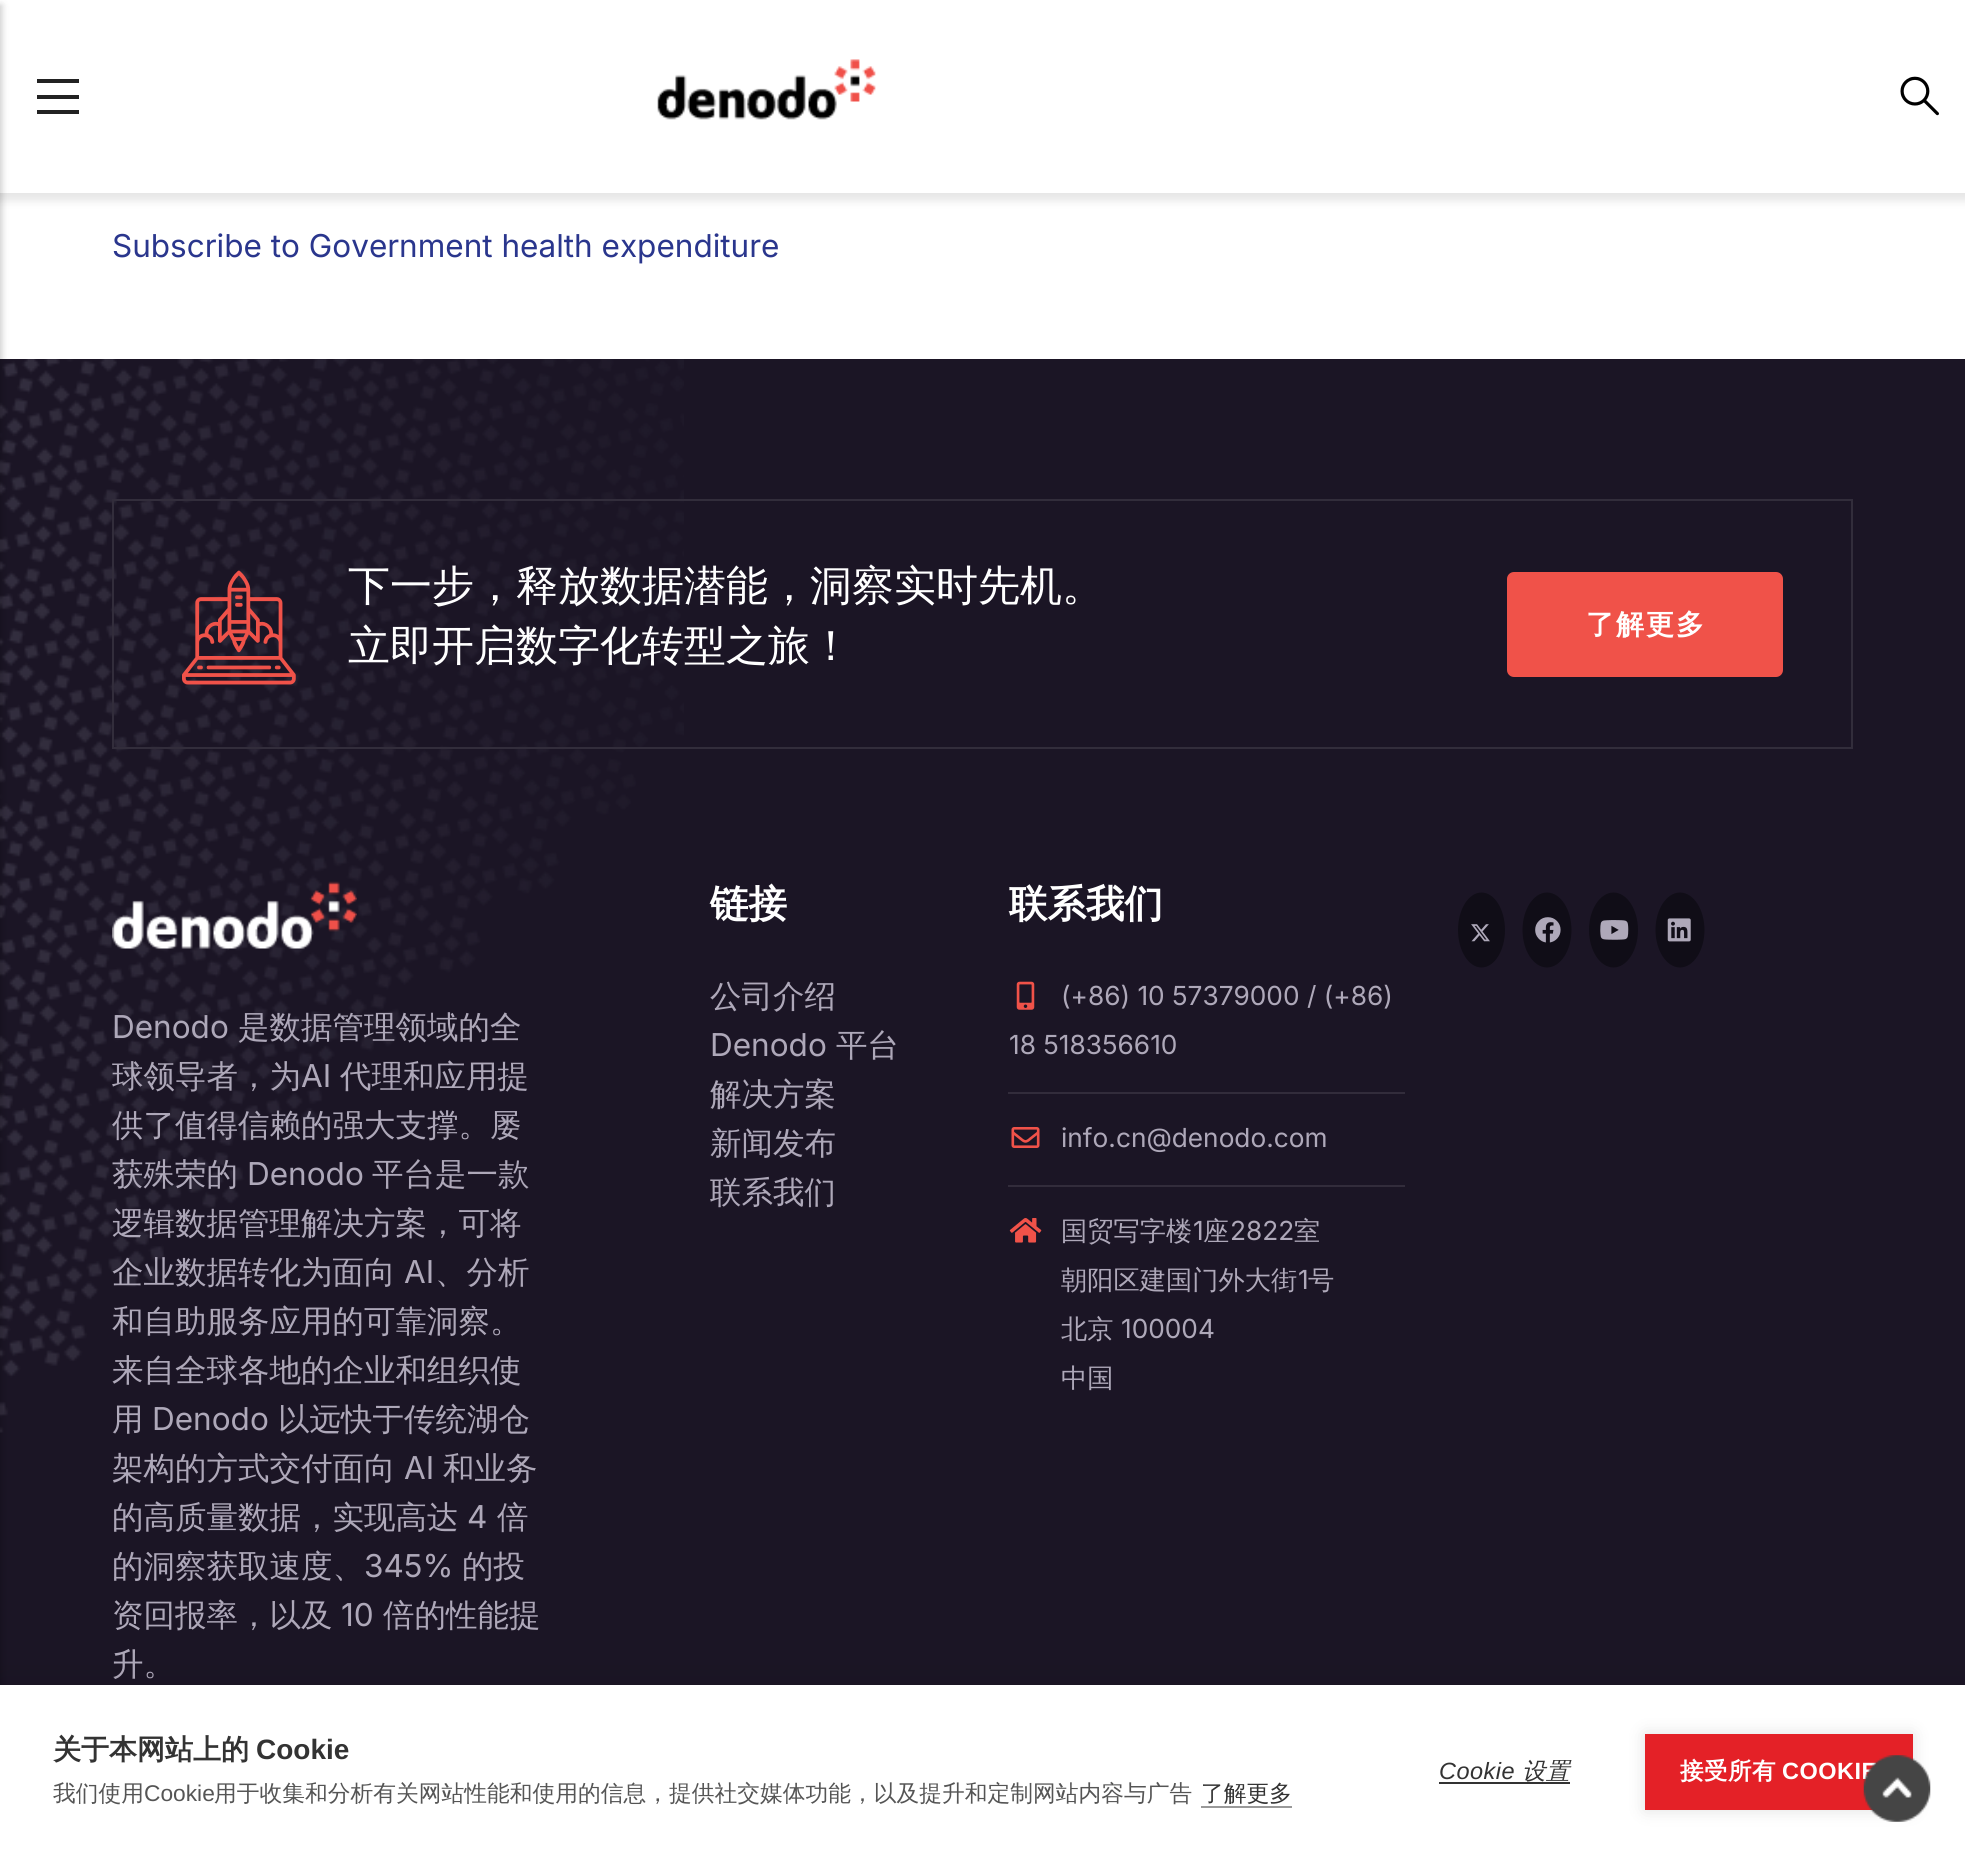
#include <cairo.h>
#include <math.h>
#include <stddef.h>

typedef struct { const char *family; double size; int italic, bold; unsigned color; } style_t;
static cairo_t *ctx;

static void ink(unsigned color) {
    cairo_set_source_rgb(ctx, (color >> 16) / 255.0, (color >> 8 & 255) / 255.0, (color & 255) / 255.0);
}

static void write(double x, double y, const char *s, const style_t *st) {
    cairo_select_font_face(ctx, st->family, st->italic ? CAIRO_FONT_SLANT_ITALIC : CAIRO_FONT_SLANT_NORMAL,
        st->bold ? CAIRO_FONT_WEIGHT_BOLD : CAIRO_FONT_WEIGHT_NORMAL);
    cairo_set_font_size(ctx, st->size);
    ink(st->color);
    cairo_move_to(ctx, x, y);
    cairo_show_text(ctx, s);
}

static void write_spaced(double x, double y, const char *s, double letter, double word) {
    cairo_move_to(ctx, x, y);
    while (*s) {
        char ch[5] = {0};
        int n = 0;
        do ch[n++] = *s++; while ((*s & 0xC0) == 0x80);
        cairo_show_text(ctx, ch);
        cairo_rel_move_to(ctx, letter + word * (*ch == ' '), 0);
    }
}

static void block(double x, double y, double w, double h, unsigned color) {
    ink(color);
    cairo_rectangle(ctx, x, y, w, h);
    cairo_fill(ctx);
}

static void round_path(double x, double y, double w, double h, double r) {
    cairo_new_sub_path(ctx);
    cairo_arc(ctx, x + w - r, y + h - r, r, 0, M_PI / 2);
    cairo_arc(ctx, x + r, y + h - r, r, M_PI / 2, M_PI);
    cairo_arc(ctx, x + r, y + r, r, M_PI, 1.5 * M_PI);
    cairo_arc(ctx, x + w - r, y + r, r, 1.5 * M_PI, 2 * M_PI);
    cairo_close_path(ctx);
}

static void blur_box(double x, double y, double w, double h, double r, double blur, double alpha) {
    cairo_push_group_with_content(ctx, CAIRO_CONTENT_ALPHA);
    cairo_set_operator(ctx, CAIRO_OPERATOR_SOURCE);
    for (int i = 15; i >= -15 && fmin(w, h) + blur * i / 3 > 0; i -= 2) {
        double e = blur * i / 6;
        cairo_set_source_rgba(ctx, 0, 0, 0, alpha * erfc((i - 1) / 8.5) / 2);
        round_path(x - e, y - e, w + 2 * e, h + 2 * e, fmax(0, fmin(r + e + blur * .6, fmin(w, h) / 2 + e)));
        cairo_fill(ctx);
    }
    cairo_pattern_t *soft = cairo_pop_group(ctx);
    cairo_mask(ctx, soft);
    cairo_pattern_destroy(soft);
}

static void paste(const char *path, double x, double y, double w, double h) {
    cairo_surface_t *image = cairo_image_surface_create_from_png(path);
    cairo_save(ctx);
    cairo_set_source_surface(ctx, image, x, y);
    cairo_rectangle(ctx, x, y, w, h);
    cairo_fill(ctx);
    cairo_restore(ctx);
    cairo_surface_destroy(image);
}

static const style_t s1 = {"Inter", 31.5, 0, 0, 0x2a368d};
static const style_t s2 = {"WenQuanYi Zen Hei Medium", 42, 0, 0, 0xffffff};
static const style_t s3 = {"WenQuanYi Zen Hei", 38.5, 0, 1, 0xffffff};
static const style_t s4 = {"WenQuanYi Zen Hei Medium", 31.5, 0, 0, 0xaea8b9};
static const style_t s5 = {"Inter", 31.5, 0, 0, 0xaea8b9};
static const style_t s6 = {"Inter", 26.25, 0, 0, 0xaea8b9};
static const style_t s7 = {"WenQuanYi Zen Hei Medium", 26.25, 0, 0, 0xaea8b9};
static const style_t s8 = {"WenQuanYi Zen Hei", 28, 0, 1, 0x333333};
static const style_t s9 = {"Liberation Sans", 28, 0, 1, 0x333333};
static const style_t s10 = {"WenQuanYi Zen Hei Medium", 22.75, 0, 0, 0x555555};
static const style_t s11 = {"Liberation Sans", 22.75, 0, 0, 0x555555};
static const style_t s12 = {"WenQuanYi Zen Hei Medium", 22.75, 0, 0, 0x333333};

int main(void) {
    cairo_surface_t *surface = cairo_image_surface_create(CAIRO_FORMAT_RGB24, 1965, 1856);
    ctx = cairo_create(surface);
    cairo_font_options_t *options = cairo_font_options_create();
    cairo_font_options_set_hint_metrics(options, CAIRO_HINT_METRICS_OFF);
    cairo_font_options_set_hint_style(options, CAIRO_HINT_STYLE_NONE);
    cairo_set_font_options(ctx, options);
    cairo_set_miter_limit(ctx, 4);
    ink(0xffffff);
    cairo_paint(ctx);
    ink(0x000000);
    blur_box(-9, -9, 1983, 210, 0, 4.5, 0.1);
    block(0, 0, 1965, 193, 0xffffff);
    block(0, 359, 1965, 1326, 0x1b1525);
    paste("pic3.png", 0, 359, 684, 1074);
    ink(0x000000);
    blur_box(-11, 5, 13, 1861, 0, 3.5, 0.2);
    block(37, 79, 42, 4, 0x222222);
    block(37, 95, 42, 4, 0x222222);
    block(37, 110, 42, 4, 0x222222);
    paste("pic1.png", 657, 59, 219, 61);
    paste("pic2.png", 1900, 76, 39, 40);
    write(112, 257, "Subscribe to Government health expenditure", &s1);
    cairo_rectangle(ctx, 113, 500, 1739, 248);
    ink(0x322d3b);
    cairo_stroke(ctx);
    paste("pic4.png", 182, 570, 114, 115);
    write(348, 600, "下一步，释放数据潜能，洞察实时先机。", &s2);
    write(348, 660, "立即开启数字化转型之旅！", &s2);
    ink(0xf05249);
    round_path(1507, 572, 276, 105, 7);
    cairo_fill(ctx);
    cairo_select_font_face(ctx, "WenQuanYi Zen Hei", CAIRO_FONT_SLANT_NORMAL, CAIRO_FONT_WEIGHT_BOLD);
    cairo_set_font_size(ctx, 28);
    ink(0xffffff);
    write_spaced(1586, 634, "了解更多", 2, 0);
    write(710, 917, "链接", &s3);
    write(710, 1007, "公司介绍", &s4);
    write(710, 1056, "Denodo", &s5);
    write(836, 1056, "平台", &s4);
    write(710, 1105, "解决方案", &s4);
    write(710, 1154, "新闻发布", &s4);
    write(710, 1203, "联系我们", &s4);
    write(1009, 917, "联系我们", &s3);
    block(1008, 1092, 397, 2, 0x322c3b);
    paste("pic5.png", 1016, 981, 19, 29);
    write(1061, 1005, "(+86) 10 57379000 / (+86)", &s6);
    write(1009, 1054, "18 518356610", &s6);
    block(1008, 1185, 397, 2, 0x322c3b);
    paste("pic6.png", 1011, 1127, 29, 21);
    write(1061, 1147, "info.cn@denodo.com", &s6);
    paste("pic7.png", 1009, 1218, 33, 25);
    write(1061, 1240, "国贸写字楼", &s7);
    write(1193, 1240, "1", &s6);
    write(1203, 1240, "座", &s7);
    write(1230, 1240, "2822", &s6);
    write(1294, 1240, "室", &s7);
    write(1061, 1289, "朝阳区建国门外大街", &s7);
    write(1298, 1289, "1", &s6);
    write(1308, 1289, "号", &s7);
    write(1061, 1338, "北京", &s7);
    write(1121, 1338, "100004", &s6);
    write(1061, 1387, "中国", &s7);
    ink(0x100d17);
    cairo_new_path(ctx);
    cairo_move_to(ctx, 1481.5, 892.5);
    cairo_curve_to(ctx, 1494.5, 892.5, 1505, 909.5, 1505, 930);
    cairo_curve_to(ctx, 1505, 950.5, 1494.5, 967.5, 1481.5, 967.5);
    cairo_curve_to(ctx, 1468.5, 967.5, 1458, 950.5, 1458, 930);
    cairo_curve_to(ctx, 1458, 909.5, 1468.5, 892.5, 1481.5, 892.5);
    cairo_close_path(ctx);
    cairo_fill(ctx);
    paste("pic8.png", 1471, 924, 19, 18);
    cairo_new_path(ctx);
    cairo_move_to(ctx, 1547, 892.5);
    cairo_curve_to(ctx, 1560.5, 892.5, 1571.5, 909.5, 1571.5, 930);
    cairo_curve_to(ctx, 1571.5, 950.5, 1560.5, 967.5, 1547, 967.5);
    cairo_curve_to(ctx, 1533.5, 967.5, 1522.5, 950.5, 1522.5, 930);
    cairo_curve_to(ctx, 1522.5, 909.5, 1533.5, 892.5, 1547, 892.5);
    cairo_close_path(ctx);
    cairo_fill(ctx);
    paste("pic9.png", 1535, 917, 26, 26);
    cairo_new_path(ctx);
    cairo_move_to(ctx, 1613.5, 892.5);
    cairo_curve_to(ctx, 1627, 892.5, 1638, 909.5, 1638, 930);
    cairo_curve_to(ctx, 1638, 950.5, 1627, 967.5, 1613.5, 967.5);
    cairo_curve_to(ctx, 1600, 967.5, 1589, 950.5, 1589, 930);
    cairo_curve_to(ctx, 1589, 909.5, 1600, 892.5, 1613.5, 892.5);
    cairo_close_path(ctx);
    cairo_fill(ctx);
    paste("pic10.png", 1600, 920, 29, 20);
    cairo_new_path(ctx);
    cairo_move_to(ctx, 1680, 892.5);
    cairo_curve_to(ctx, 1693.5, 892.5, 1704.5, 909.5, 1704.5, 930);
    cairo_curve_to(ctx, 1704.5, 950.5, 1693.5, 967.5, 1680, 967.5);
    cairo_curve_to(ctx, 1666.5, 967.5, 1655.5, 950.5, 1655.5, 930);
    cairo_curve_to(ctx, 1655.5, 909.5, 1666.5, 892.5, 1680, 892.5);
    cairo_close_path(ctx);
    cairo_fill(ctx);
    paste("pic11.png", 1667, 918, 24, 24);
    paste("pic12.png", 112, 881, 245, 69);
    write(112, 1038, "Denodo", &s5);
    write(238, 1038, "是数据管理领域的全", &s4);
    write(112, 1087, "球领导者，为", &s4);
    write(301, 1087, "AI", &s5);
    write(340, 1087, "代理和应用提", &s4);
    write(112, 1136, "供了值得信赖的强大支撑。屡", &s4);
    write(112, 1185, "获殊荣的", &s4);
    write(247, 1185, "Denodo", &s5);
    write(372, 1185, "平台是一款", &s4);
    write(112, 1234, "逻辑数据管理解决方案，可将", &s4);
    write(112, 1283, "企业数据转化为面向", &s4);
    write(404, 1283, "AI", &s5);
    write(435, 1283, "、分析", &s4);
    write(112, 1332, "和自助服务应用的可靠洞察。", &s4);
    write(112, 1381, "来自全球各地的企业和组织使", &s4);
    write(112, 1430, "用", &s4);
    write(152, 1430, "Denodo", &s5);
    write(278, 1430, "以远快于传统湖仓", &s4);
    write(112, 1479, "架构的方式交付面向", &s4);
    write(404, 1479, "AI", &s5);
    write(443, 1479, "和业务", &s4);
    write(112, 1528, "的高质量数据，实现高达", &s4);
    write(467, 1528, "4", &s5);
    write(497, 1528, "倍", &s4);
    write(112, 1577, "的洞察获取速度、", &s4);
    write(364, 1577, "345%", &s5);
    write(462, 1577, "的投", &s4);
    write(112, 1626, "资回报率，以及", &s4);
    write(341, 1626, "10", &s5);
    write(383, 1626, "倍的性能提", &s4);
    write(112, 1675, "升。", &s4);
    ink(0x000000);
    blur_box(0, 1685, 1965, 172, 0, 17.5, 0.1);
    block(0, 1685, 1965, 171, 0xffffff);
    write(53, 1759, "关于本网站上的", &s8);
    write(256, 1759, "Cookie", &s9);
    write(53, 1801, "我们使用", &s10);
    write(144, 1801, "Cookie", &s11);
    write(214, 1801, "用于收集和分析有关网站性能和使用的信息，提供社交媒体功能，以及提升和定制网站内容与广告", &s10);
    write(1201, 1801, "了解更多", &s12);
    block(1201, 1806, 91, 2, 0x999999);
    cairo_select_font_face(ctx, "Liberation Sans", CAIRO_FONT_SLANT_ITALIC, CAIRO_FONT_WEIGHT_NORMAL);
    cairo_set_font_size(ctx, 23.5);
    ink(0x333333);
    write_spaced(1439, 1779, "Cookie", 0.5, 0);
    block(1439, 1782, 131, 2, 0x333333);
    cairo_select_font_face(ctx, "WenQuanYi Zen Hei Medium", CAIRO_FONT_SLANT_ITALIC, CAIRO_FONT_WEIGHT_NORMAL);
    write_spaced(1522, 1779, "设置", 0.5, 0);
    ink(0x000000);
    blur_box(1645, 1734, 268, 76, 0, 9, 0.12);
    block(1645, 1734, 268, 76, 0xe42127);
    cairo_select_font_face(ctx, "WenQuanYi Zen Hei", CAIRO_FONT_SLANT_NORMAL, CAIRO_FONT_WEIGHT_BOLD);
    ink(0xffffff);
    write_spaced(1680, 1779, "接受所有", 0.5, 0);
    cairo_select_font_face(ctx, "Liberation Sans", CAIRO_FONT_SLANT_NORMAL, CAIRO_FONT_WEIGHT_BOLD);
    write_spaced(1782, 1779, "COOKIE", 0.5, 0);
    paste("pic13.png", 1863, 1755, 68, 67);
    cairo_surface_write_to_png(surface, "screenshot.png");
    cairo_font_options_destroy(options);
    cairo_destroy(ctx);
    cairo_surface_destroy(surface);
    return 0;
}
